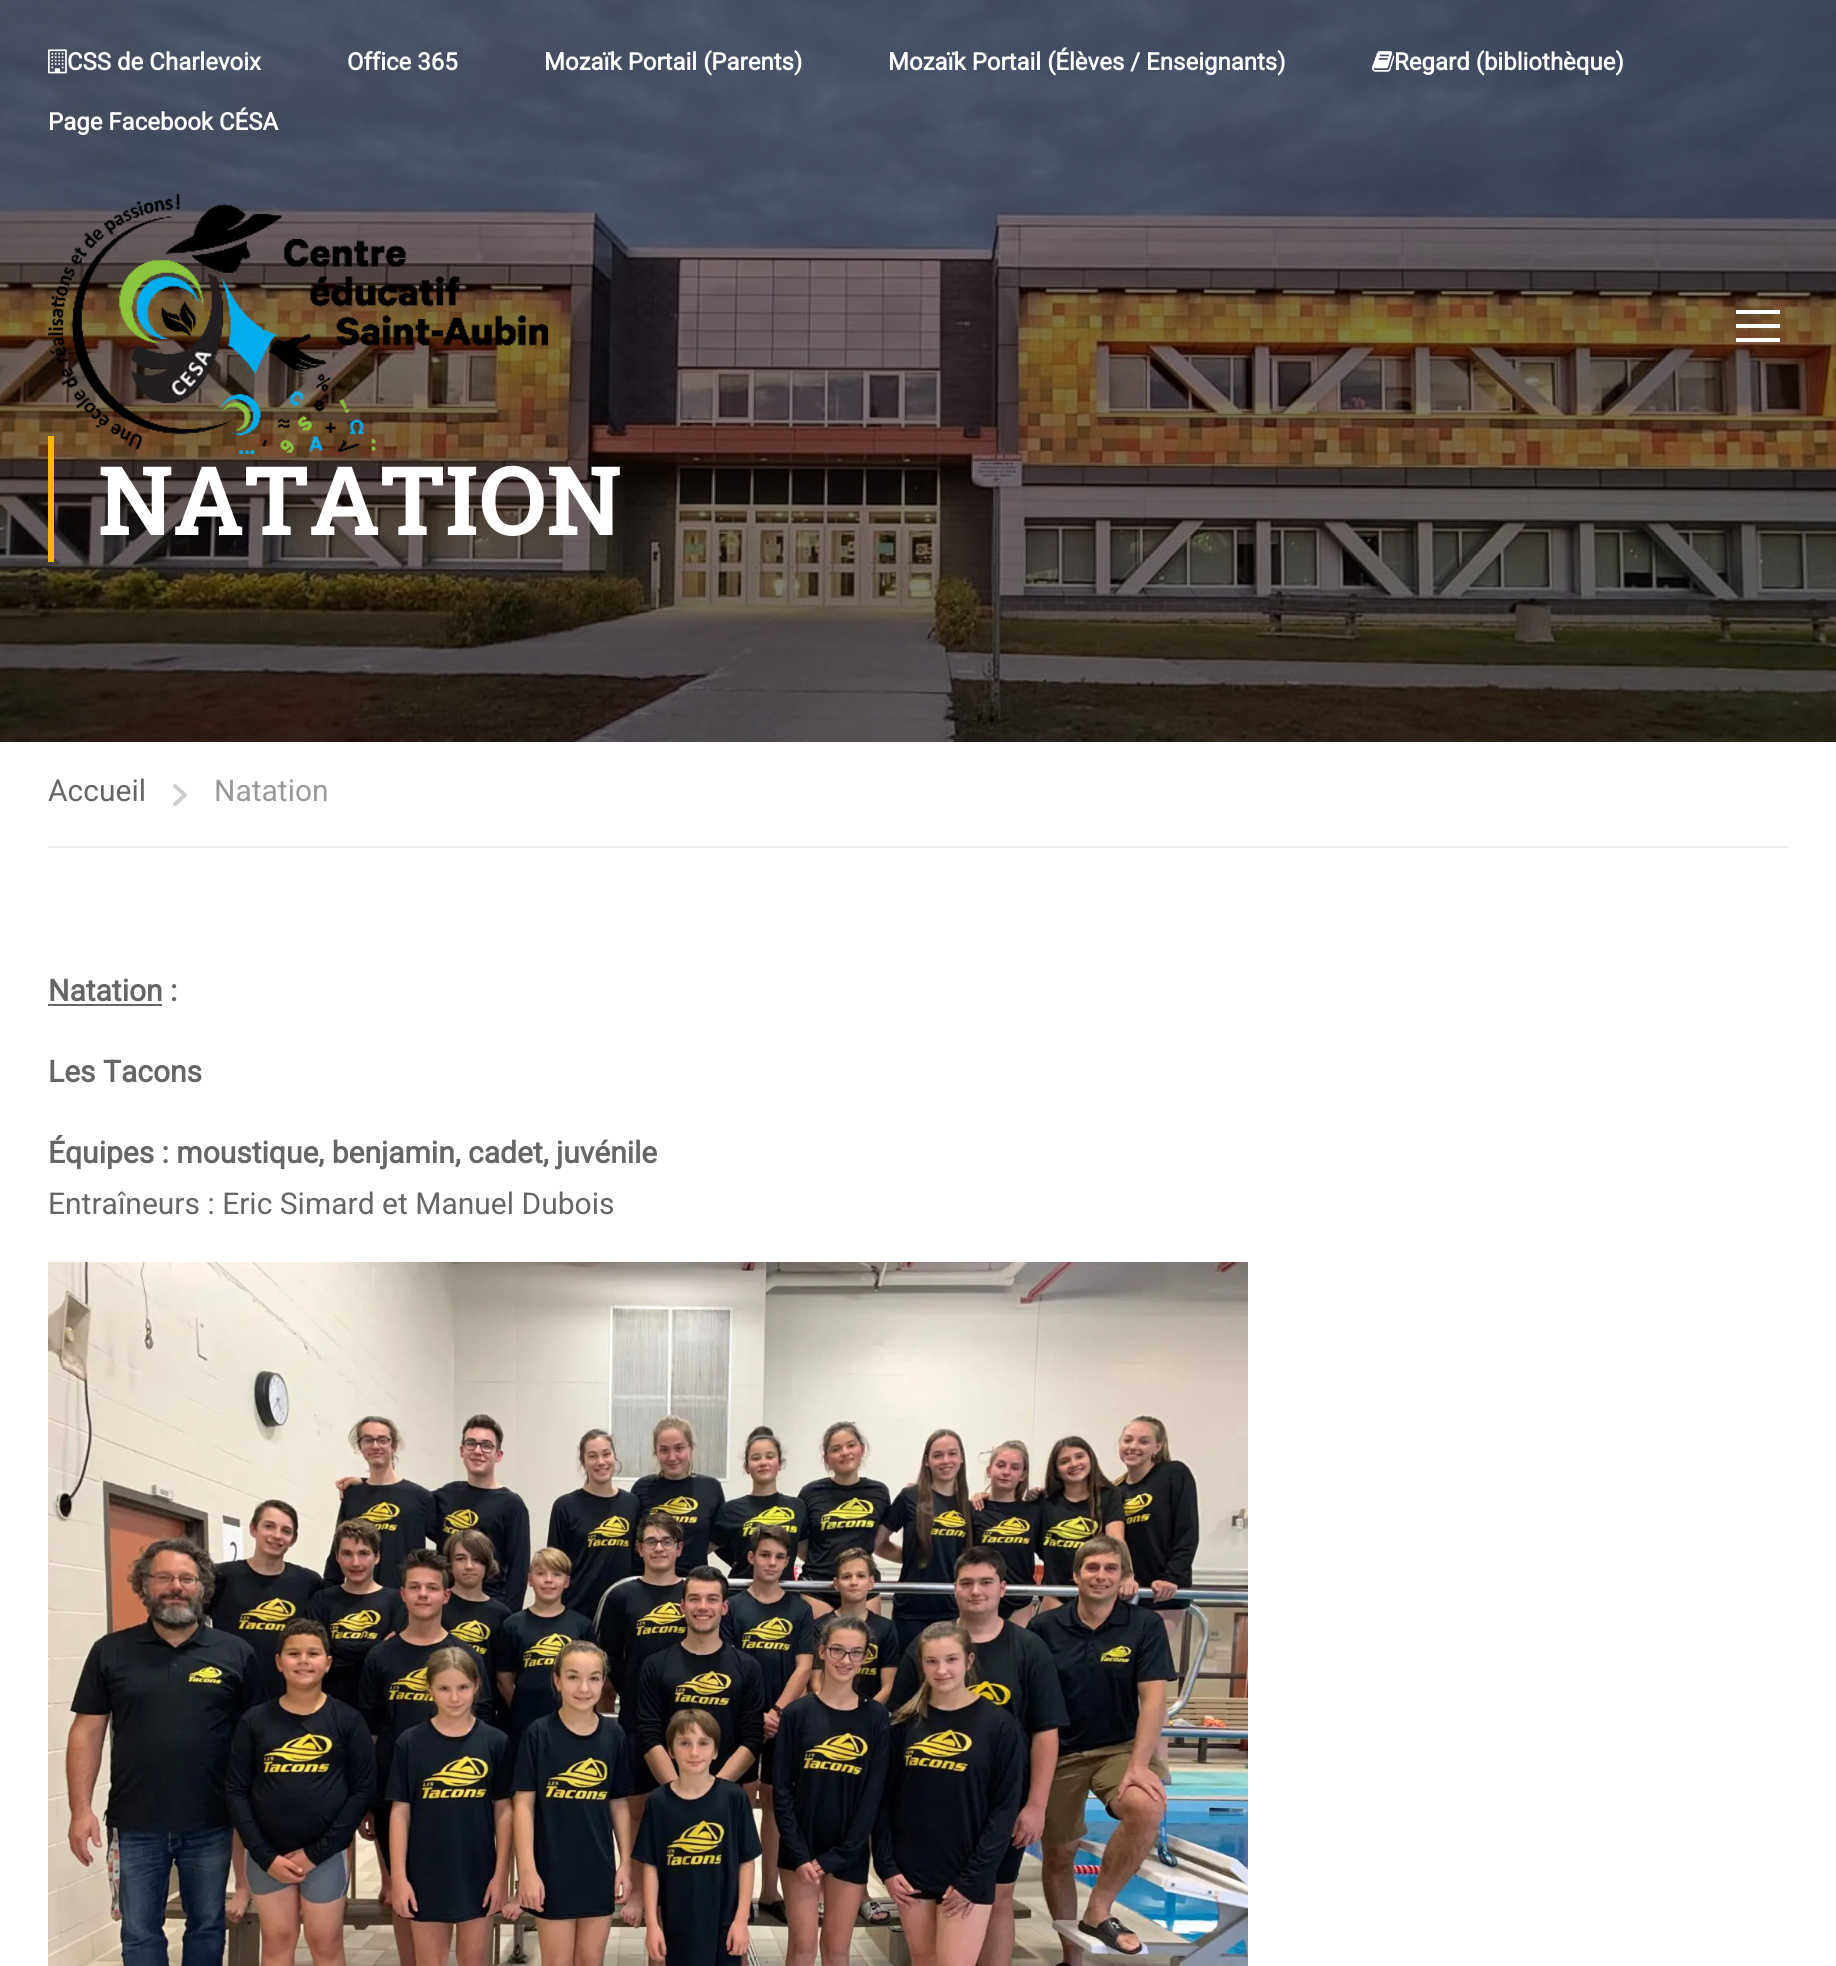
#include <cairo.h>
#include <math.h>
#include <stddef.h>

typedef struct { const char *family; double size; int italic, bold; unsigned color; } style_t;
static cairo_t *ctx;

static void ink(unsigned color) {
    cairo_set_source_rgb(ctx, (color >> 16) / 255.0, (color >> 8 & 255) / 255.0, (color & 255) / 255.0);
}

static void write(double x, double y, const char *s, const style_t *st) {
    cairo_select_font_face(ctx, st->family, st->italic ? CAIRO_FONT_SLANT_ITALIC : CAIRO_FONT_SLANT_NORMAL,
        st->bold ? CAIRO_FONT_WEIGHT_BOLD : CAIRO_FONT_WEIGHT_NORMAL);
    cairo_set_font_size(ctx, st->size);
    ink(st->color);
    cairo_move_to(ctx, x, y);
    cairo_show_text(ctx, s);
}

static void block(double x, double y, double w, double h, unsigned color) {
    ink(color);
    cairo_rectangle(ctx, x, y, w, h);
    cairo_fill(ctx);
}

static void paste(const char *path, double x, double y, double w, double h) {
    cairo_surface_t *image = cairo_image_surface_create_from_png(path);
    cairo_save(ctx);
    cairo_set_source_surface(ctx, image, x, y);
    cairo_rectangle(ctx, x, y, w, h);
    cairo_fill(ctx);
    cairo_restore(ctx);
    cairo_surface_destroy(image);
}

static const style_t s1 = {"Roboto", 24, 0, 1, 0xffffff};
static const style_t s2 = {"Roboto Slab", 96, 0, 1, 0xffffff};
static const style_t s3 = {"Roboto", 30, 0, 0, 0x666666};
static const style_t s4 = {"Roboto", 30, 0, 0, 0x999999};
static const style_t s5 = {"Roboto", 30, 0, 1, 0x666666};

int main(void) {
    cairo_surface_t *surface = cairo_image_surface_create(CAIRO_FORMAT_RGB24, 1836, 1966);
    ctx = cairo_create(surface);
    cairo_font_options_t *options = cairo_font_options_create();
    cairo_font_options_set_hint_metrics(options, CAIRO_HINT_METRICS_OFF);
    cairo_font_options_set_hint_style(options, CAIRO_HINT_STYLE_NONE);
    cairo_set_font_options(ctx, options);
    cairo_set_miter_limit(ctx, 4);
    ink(0xffffff);
    cairo_paint(ctx);
    paste("pic4.png", 0, 0, 1836, 742);
    paste("pic1.png", 48, 49, 19, 25);
    write(67, 70, "CSS de Charlevoix", &s1);
    write(347, 70, "Office 365", &s1);
    write(544, 70, "Mozaïk Portail (Parents)", &s1);
    write(888, 70, "Mozaïk Portail (Élèves / Enseignants)", &s1);
    paste("pic2.png", 1372, 51, 23, 21);
    write(1394, 70, "Regard (bibliothèque)", &s1);
    write(48, 130, "Page Facebook CÉSA", &s1);
    block(48, 436, 6, 126, 0xffb606);
    paste("pic3.png", 48, 194, 500, 260);
    block(1736, 310, 44, 4, 0xffffff);
    block(1736, 324, 44, 4, 0xffffff);
    block(1736, 338, 44, 4, 0xffffff);
    write(98, 535, "NATATION", &s2);
    block(48, 846, 1740, 2, 0xeeeeee);
    write(48, 801, "Accueil", &s3);
    paste("pic5.png", 173, 784, 14, 23);
    write(214, 801, "Natation", &s4);
    write(48, 1001, "Natation :", &s5);
    block(48, 1004, 114, 2, 0x666666);
    write(48, 1082, "Les Tacons", &s5);
    write(48, 1163, "Équipes : moustique, benjamin, cadet, juvénile", &s5);
    write(48, 1214, "Entraîneurs : Eric Simard et Manuel Dubois", &s3);
    paste("pic6.png", 48, 1262, 1200, 704);
    cairo_surface_write_to_png(surface, "screenshot.png");
    cairo_font_options_destroy(options);
    cairo_destroy(ctx);
    cairo_surface_destroy(surface);
    return 0;
}
